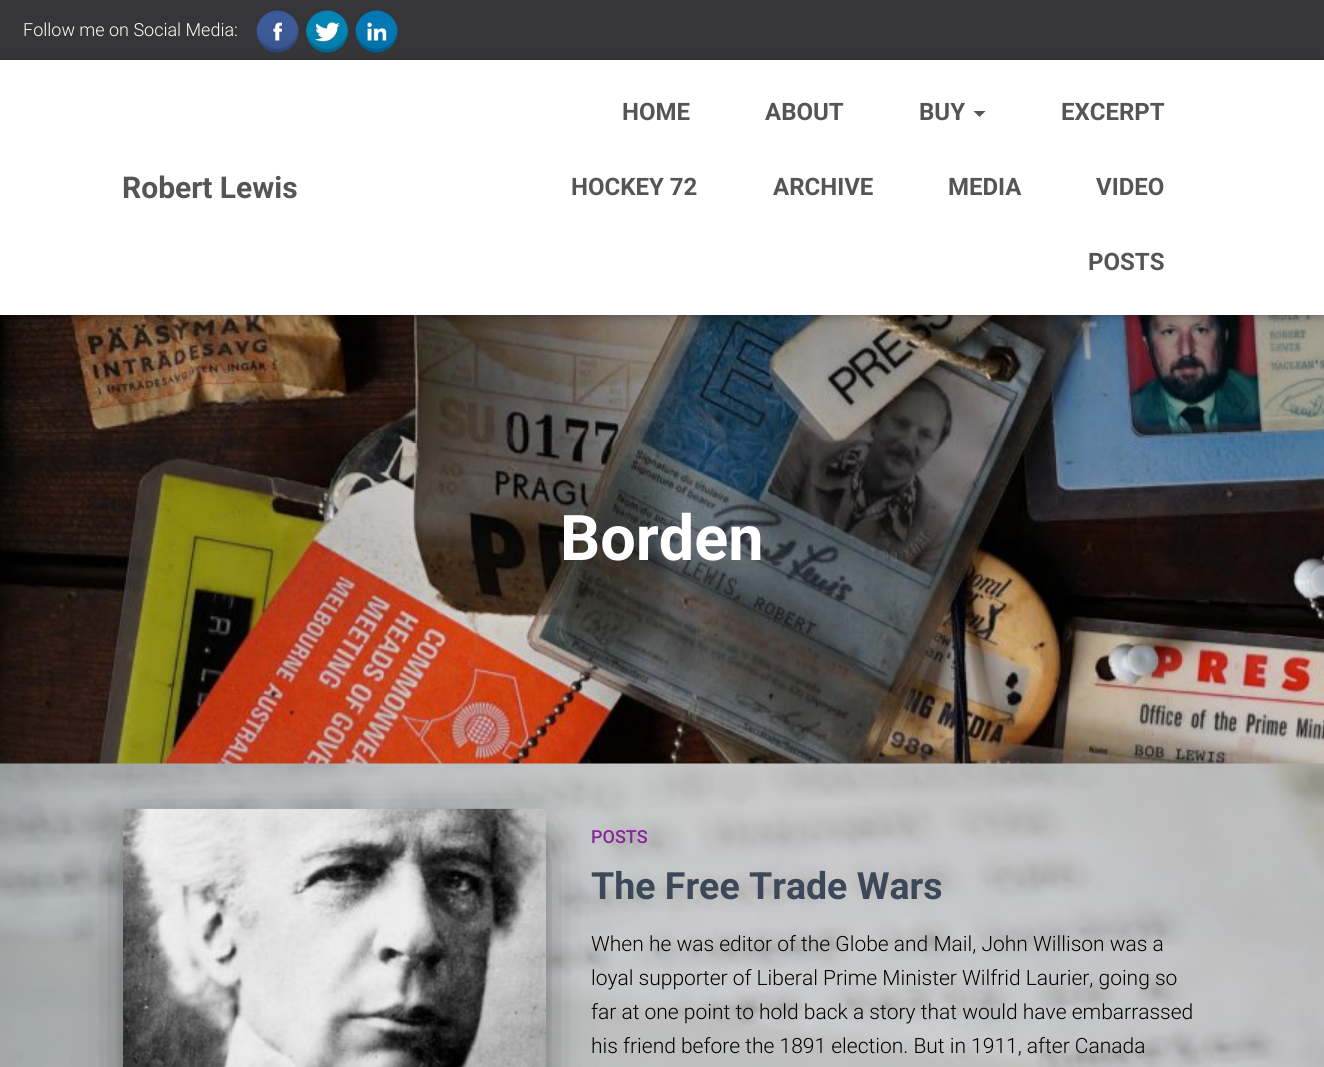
#include <cairo.h>
#include <math.h>
#include <stddef.h>

typedef struct { const char *family; double size; int italic, bold; unsigned color; } style_t;
static cairo_t *ctx;

static void ink(unsigned color) {
    cairo_set_source_rgb(ctx, (color >> 16) / 255.0, (color >> 8 & 255) / 255.0, (color & 255) / 255.0);
}

static void write(double x, double y, const char *s, const style_t *st) {
    cairo_select_font_face(ctx, st->family, st->italic ? CAIRO_FONT_SLANT_ITALIC : CAIRO_FONT_SLANT_NORMAL,
        st->bold ? CAIRO_FONT_WEIGHT_BOLD : CAIRO_FONT_WEIGHT_NORMAL);
    cairo_set_font_size(ctx, st->size);
    ink(st->color);
    cairo_move_to(ctx, x, y);
    cairo_show_text(ctx, s);
}

static void block(double x, double y, double w, double h, unsigned color) {
    ink(color);
    cairo_rectangle(ctx, x, y, w, h);
    cairo_fill(ctx);
}

static void round_path(double x, double y, double w, double h, double r) {
    cairo_new_sub_path(ctx);
    cairo_arc(ctx, x + w - r, y + h - r, r, 0, M_PI / 2);
    cairo_arc(ctx, x + r, y + h - r, r, M_PI / 2, M_PI);
    cairo_arc(ctx, x + r, y + r, r, M_PI, 1.5 * M_PI);
    cairo_arc(ctx, x + w - r, y + r, r, 1.5 * M_PI, 2 * M_PI);
    cairo_close_path(ctx);
}

static void blur_box(double x, double y, double w, double h, double r, double blur, double alpha) {
    cairo_push_group_with_content(ctx, CAIRO_CONTENT_ALPHA);
    cairo_set_operator(ctx, CAIRO_OPERATOR_SOURCE);
    for (int i = 15; i >= -15 && fmin(w, h) + blur * i / 3 > 0; i -= 2) {
        double e = blur * i / 6;
        cairo_set_source_rgba(ctx, 0, 0, 0, alpha * erfc((i - 1) / 8.5) / 2);
        round_path(x - e, y - e, w + 2 * e, h + 2 * e, fmax(0, fmin(r + e + blur * .6, fmin(w, h) / 2 + e)));
        cairo_fill(ctx);
    }
    cairo_pattern_t *soft = cairo_pop_group(ctx);
    cairo_mask(ctx, soft);
    cairo_pattern_destroy(soft);
}

static void paste(const char *path, double x, double y, double w, double h) {
    cairo_surface_t *image = cairo_image_surface_create_from_png(path);
    cairo_save(ctx);
    cairo_set_source_surface(ctx, image, x, y);
    cairo_rectangle(ctx, x, y, w, h);
    cairo_fill(ctx);
    cairo_restore(ctx);
    cairo_surface_destroy(image);
}

static const style_t s1 = {"Roboto Light", 18, 0, 0, 0xffffff};
static const style_t s2 = {"Roboto", 30, 0, 1, 0x555555};
static const style_t s3 = {"Roboto", 24, 0, 1, 0x555555};
static const style_t s4 = {"Roboto", 63, 0, 1, 0xffffff};
static const style_t s5 = {"Roboto Medium", 18, 0, 0, 0x89229b};
static const style_t s6 = {"Roboto", 37.5, 0, 1, 0x3c4858};
static const style_t s7 = {"Roboto Light", 21, 0, 0, 0x000000};

int main(void) {
    cairo_surface_t *surface = cairo_image_surface_create(CAIRO_FORMAT_RGB24, 1324, 1067);
    ctx = cairo_create(surface);
    cairo_font_options_t *options = cairo_font_options_create();
    cairo_font_options_set_hint_metrics(options, CAIRO_HINT_METRICS_OFF);
    cairo_font_options_set_hint_style(options, CAIRO_HINT_STYLE_NONE);
    cairo_set_font_options(ctx, options);
    cairo_set_miter_limit(ctx, 4);
    ink(0x363537);
    cairo_paint(ctx);
    write(23, 36, "Follow me on Social Media:", &s1);
    paste("pic1.png", 256, 10, 43, 43);
    paste("pic2.png", 306, 10, 42, 43);
    paste("pic3.png", 355, 10, 43, 43);
    paste("pic4.png", 0, 315, 1324, 449);
    ink(0x000000);
    blur_box(3, 69, 1319, 249, 0, 4, 0.1);
    blur_box(0, 62, 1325, 255, 0, 7.5, 0.12);
    blur_box(9, 71, 1307, 237, 0, 7.5, 0.42);
    block(0, 60, 1324, 255, 0xffffff);
    write(122, 198, "Robert Lewis", &s2);
    write(622, 120, "HOME", &s3);
    write(765, 120, "ABOUT", &s3);
    write(919, 120, "BUY", &s3);
    cairo_new_path(ctx);
    cairo_move_to(ctx, 973.5, 111);
    cairo_line_to(ctx, 985.5, 111);
    cairo_line_to(ctx, 979.5, 117);
    cairo_close_path(ctx);
    cairo_fill(ctx);
    write(1061, 120, "EXCERPT", &s3);
    write(571, 195, "HOCKEY 72", &s3);
    write(773, 195, "ARCHIVE", &s3);
    write(948, 195, "MEDIA", &s3);
    write(1096, 195, "VIDEO", &s3);
    write(1088, 270, "POSTS", &s3);
    write(560, 560, "Borden", &s4);
    paste("pic5.png", 0, 763, 1324, 304);
    ink(0x000000);
    blur_box(131, 828, 408, 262, 0, 7.5, 0.2);
    blur_box(123, 815, 423, 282, 5, 19, 0.12);
    blur_box(141, 851, 387, 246, 0, 28.5, 0.56);
    paste("pic6.png", 123, 808, 423, 259);
    write(591, 843, "POSTS", &s5);
    write(591, 899, "The Free Trade Wars", &s6);
    write(591, 951, "When he was editor of the Globe and Mail, John Willison was a", &s7);
    write(591, 985, "loyal supporter of Liberal Prime Minister Wilfrid Laurier, going so", &s7);
    write(591, 1019, "far at one point to hold back a story that would have embarrassed", &s7);
    write(591, 1053, "his friend before the 1891 election. But in 1911, after Canada", &s7);
    cairo_surface_write_to_png(surface, "screenshot.png");
    cairo_font_options_destroy(options);
    cairo_destroy(ctx);
    cairo_surface_destroy(surface);
    return 0;
}
